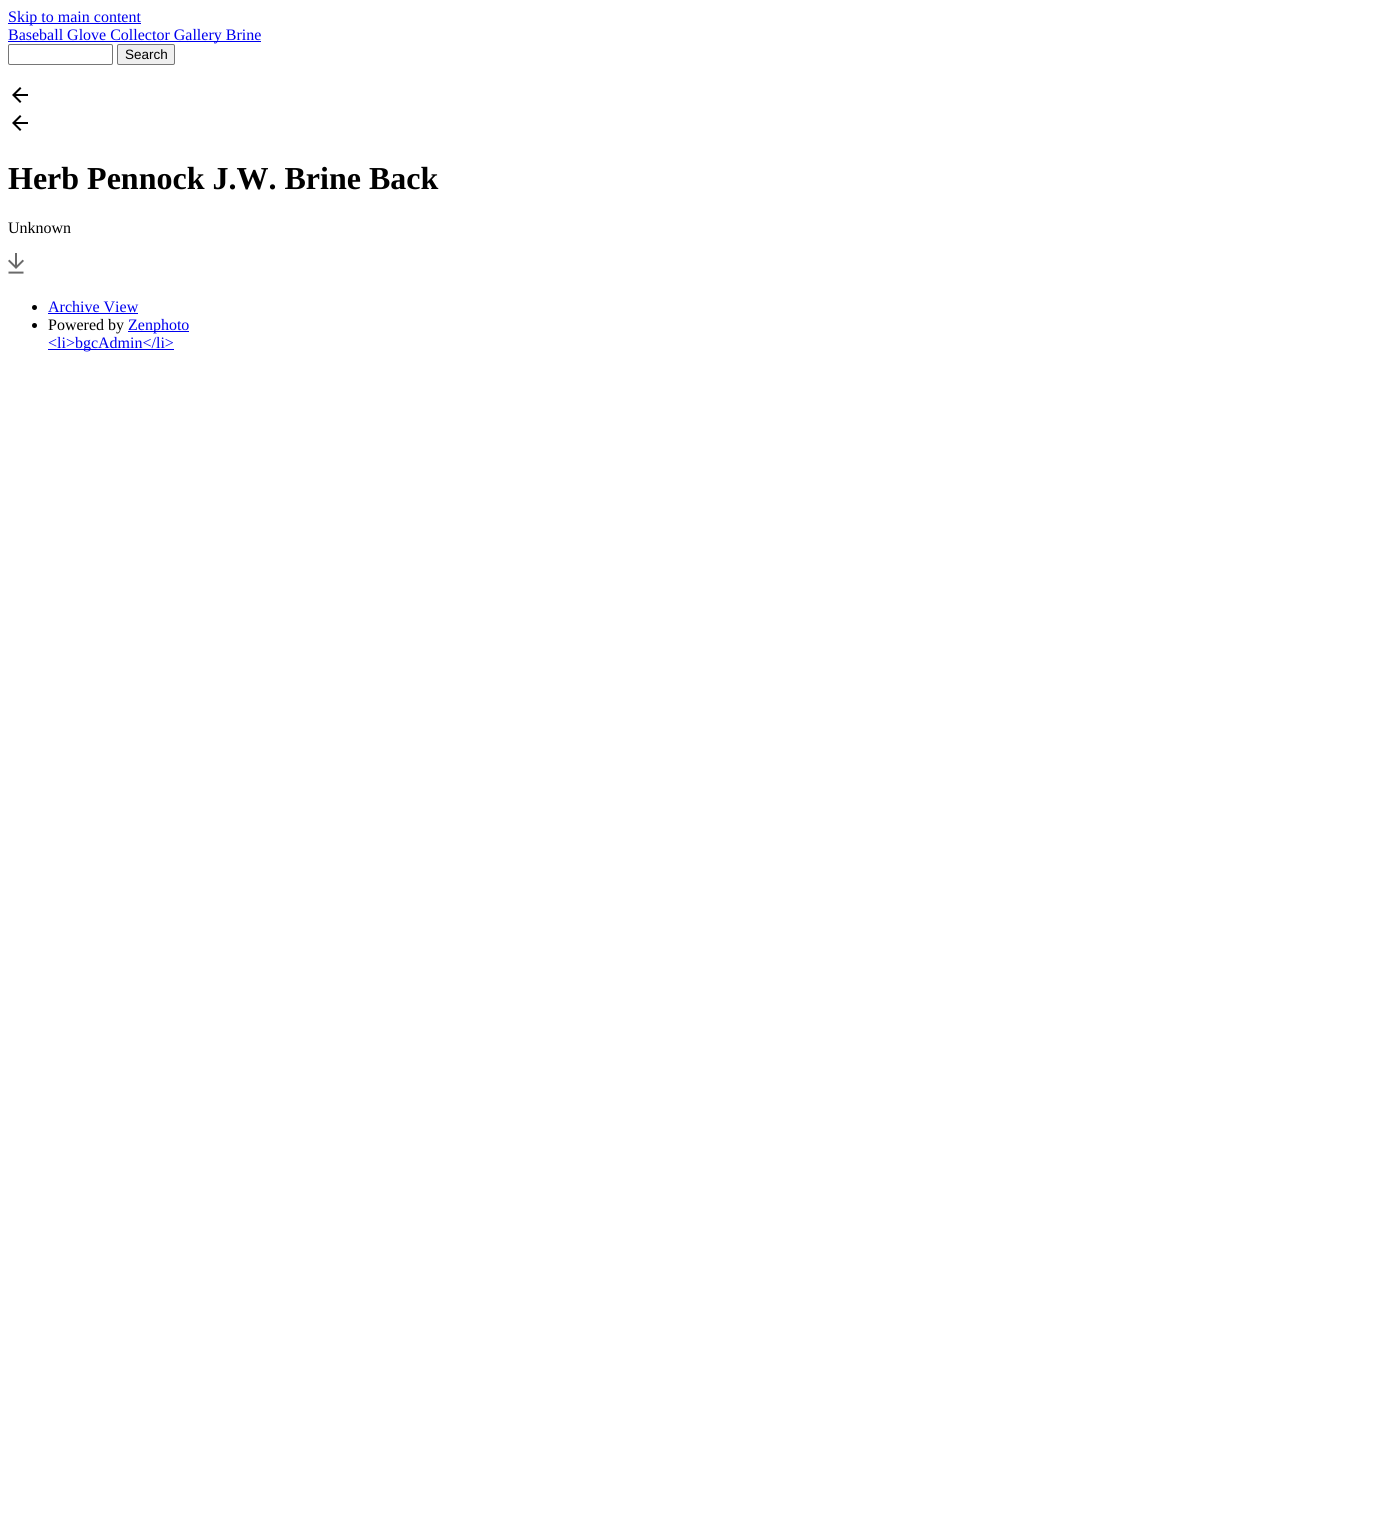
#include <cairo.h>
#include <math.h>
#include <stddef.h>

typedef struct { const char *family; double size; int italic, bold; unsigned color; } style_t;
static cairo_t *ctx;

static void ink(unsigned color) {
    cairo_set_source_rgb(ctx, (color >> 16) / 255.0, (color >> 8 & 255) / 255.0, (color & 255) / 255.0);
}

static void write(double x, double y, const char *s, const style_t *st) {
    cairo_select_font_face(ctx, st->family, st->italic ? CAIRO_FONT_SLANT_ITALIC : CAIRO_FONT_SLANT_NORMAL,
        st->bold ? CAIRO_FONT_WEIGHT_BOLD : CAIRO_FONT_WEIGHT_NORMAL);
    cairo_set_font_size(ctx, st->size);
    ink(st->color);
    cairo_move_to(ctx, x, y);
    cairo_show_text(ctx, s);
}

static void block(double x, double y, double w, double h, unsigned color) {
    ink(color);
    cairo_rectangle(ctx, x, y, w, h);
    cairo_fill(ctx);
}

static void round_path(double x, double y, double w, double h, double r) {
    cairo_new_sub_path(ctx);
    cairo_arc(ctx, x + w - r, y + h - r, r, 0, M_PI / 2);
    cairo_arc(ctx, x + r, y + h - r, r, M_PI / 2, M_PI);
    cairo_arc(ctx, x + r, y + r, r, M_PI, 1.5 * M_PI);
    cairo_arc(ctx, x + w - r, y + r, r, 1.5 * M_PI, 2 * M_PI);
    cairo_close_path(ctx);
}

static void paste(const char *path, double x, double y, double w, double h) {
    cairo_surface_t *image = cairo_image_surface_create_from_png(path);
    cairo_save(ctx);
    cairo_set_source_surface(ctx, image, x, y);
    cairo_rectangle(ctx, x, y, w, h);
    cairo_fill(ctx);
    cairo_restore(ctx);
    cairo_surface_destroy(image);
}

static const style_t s1 = {"Liberation Serif", 16, 0, 0, 0x0000ee};
static const style_t s2 = {"Liberation Sans", 13.5, 0, 0, 0x000000};
static const style_t s3 = {"Liberation Serif", 32, 0, 1, 0x000000};
static const style_t s4 = {"Liberation Serif", 16, 0, 0, 0x000000};

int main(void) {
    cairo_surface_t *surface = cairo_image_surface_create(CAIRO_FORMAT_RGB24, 1385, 1514);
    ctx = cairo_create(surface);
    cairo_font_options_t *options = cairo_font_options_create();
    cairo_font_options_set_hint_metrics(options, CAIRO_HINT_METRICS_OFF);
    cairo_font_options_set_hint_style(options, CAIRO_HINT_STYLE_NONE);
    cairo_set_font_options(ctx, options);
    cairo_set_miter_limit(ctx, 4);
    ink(0xffffff);
    cairo_paint(ctx);
    block(8, 23, 133, 1, 0x0000ee);
    write(8, 22, "Skip to main content", &s1);
    block(8, 41, 253, 1, 0x0000ee);
    write(8, 40, "Baseball Glove Collector Gallery Brine", &s1);
    round_path(8.5, 44.5, 104, 20, 1.5);
    ink(0x767676);
    cairo_set_line_width(ctx, 1);
    cairo_stroke(ctx);
    ink(0xefefef);
    round_path(117.5, 44.5, 57, 20, 1.5);
    cairo_fill_preserve(ctx);
    ink(0x767676);
    cairo_stroke(ctx);
    write(125, 59, "Search", &s2);
    paste("pic1.png", 12, 87, 16, 16);
    paste("pic1.png", 12, 115, 16, 16);
    write(8, 189, "Herb Pennock J.W. Brine Back", &s3);
    write(8, 233, "Unknown", &s4);
    paste("pic2.png", 8, 253, 16, 21);
    cairo_arc(ctx, 34.5, 307.5, 2.5, 0, 2 * M_PI);
    cairo_fill(ctx);
    write(48, 312, "Archive View", &s1);
    block(48, 313, 90, 1, 0x0000ee);
    ink(0x000000);
    cairo_new_path(ctx);
    cairo_arc(ctx, 34.5, 325.5, 2.5, 0, 2 * M_PI);
    cairo_fill(ctx);
    write(48, 330, "Powered by", &s4);
    block(128, 331, 61, 1, 0x0000ee);
    write(128, 330, "Zenphoto", &s1);
    block(48, 349, 126, 1, 0x0000ee);
    write(48, 348, "<li>bgcAdmin</li>", &s1);
    cairo_surface_write_to_png(surface, "screenshot.png");
    cairo_font_options_destroy(options);
    cairo_destroy(ctx);
    cairo_surface_destroy(surface);
    return 0;
}
